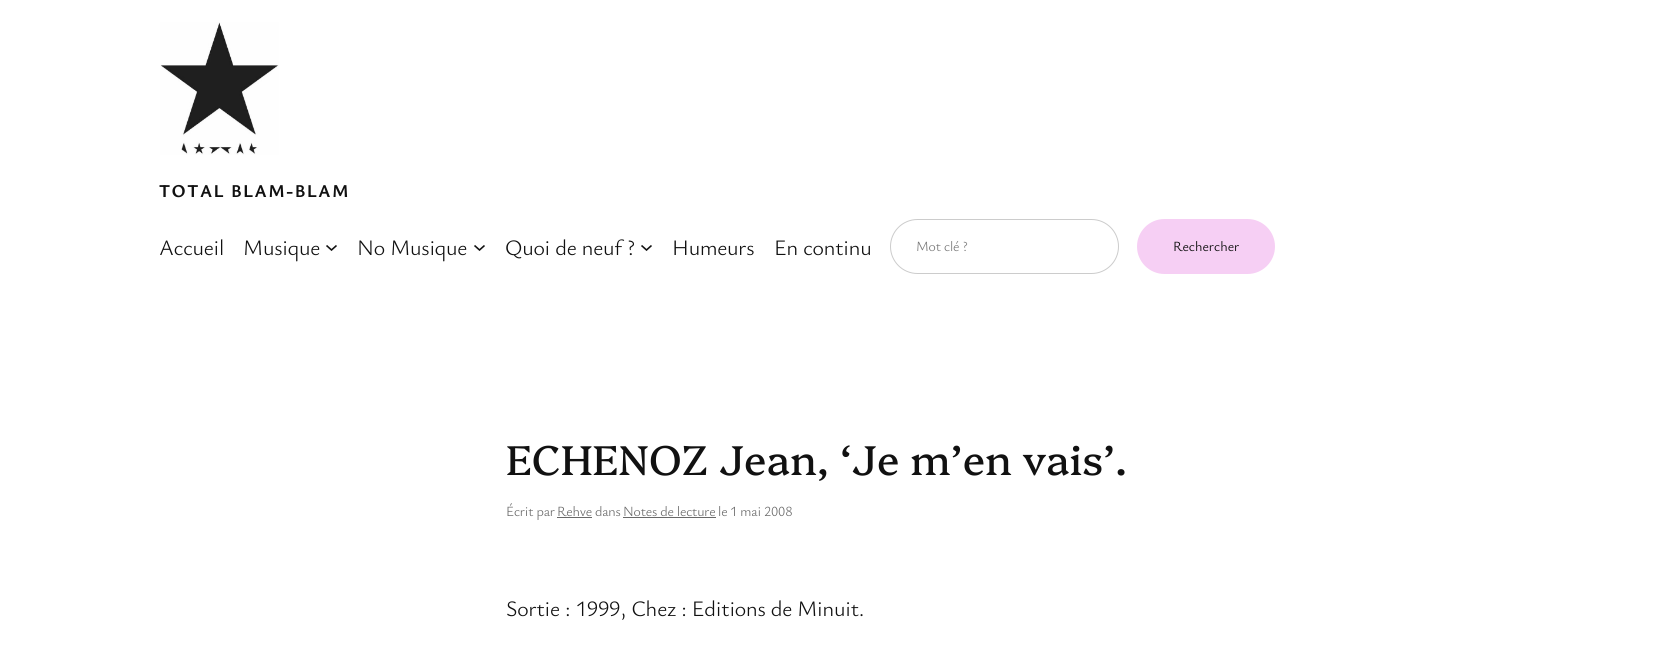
#include <cairo.h>
#include <math.h>
#include <stddef.h>

typedef struct { const char *family; double size; int italic, bold; unsigned color; } style_t;
static cairo_t *ctx;

static void ink(unsigned color) {
    cairo_set_source_rgb(ctx, (color >> 16) / 255.0, (color >> 8 & 255) / 255.0, (color & 255) / 255.0);
}

static void write(double x, double y, const char *s, const style_t *st) {
    cairo_select_font_face(ctx, st->family, st->italic ? CAIRO_FONT_SLANT_ITALIC : CAIRO_FONT_SLANT_NORMAL,
        st->bold ? CAIRO_FONT_WEIGHT_BOLD : CAIRO_FONT_WEIGHT_NORMAL);
    cairo_set_font_size(ctx, st->size);
    ink(st->color);
    cairo_move_to(ctx, x, y);
    cairo_show_text(ctx, s);
}

static void write_spaced(double x, double y, const char *s, double letter, double word) {
    cairo_move_to(ctx, x, y);
    while (*s) {
        char ch[5] = {0};
        int n = 0;
        do ch[n++] = *s++; while ((*s & 0xC0) == 0x80);
        cairo_show_text(ctx, ch);
        cairo_rel_move_to(ctx, letter + word * (*ch == ' '), 0);
    }
}

static void block(double x, double y, double w, double h, unsigned color) {
    ink(color);
    cairo_rectangle(ctx, x, y, w, h);
    cairo_fill(ctx);
}

static void round_path(double x, double y, double w, double h, double r) {
    cairo_new_sub_path(ctx);
    cairo_arc(ctx, x + w - r, y + h - r, r, 0, M_PI / 2);
    cairo_arc(ctx, x + r, y + h - r, r, M_PI / 2, M_PI);
    cairo_arc(ctx, x + r, y + r, r, M_PI, 1.5 * M_PI);
    cairo_arc(ctx, x + w - r, y + r, r, 1.5 * M_PI, 2 * M_PI);
    cairo_close_path(ctx);
}

static void paste(const char *path, double x, double y, double w, double h) {
    cairo_surface_t *image = cairo_image_surface_create_from_png(path);
    cairo_save(ctx);
    cairo_set_source_surface(ctx, image, x, y);
    cairo_rectangle(ctx, x, y, w, h);
    cairo_fill(ctx);
    cairo_restore(ctx);
    cairo_surface_destroy(image);
}

static const style_t s1 = {"Ysabeau Office", 14, 0, 0, 0x111111};

int main(void) {
    cairo_surface_t *surface = cairo_image_surface_create(CAIRO_FORMAT_RGB24, 1657, 654);
    ctx = cairo_create(surface);
    cairo_font_options_t *options = cairo_font_options_create();
    cairo_font_options_set_hint_metrics(options, CAIRO_HINT_METRICS_OFF);
    cairo_font_options_set_hint_style(options, CAIRO_HINT_STYLE_NONE);
    cairo_set_font_options(ctx, options);
    cairo_set_miter_limit(ctx, 4);
    ink(0xffffff);
    cairo_paint(ctx);
    paste("pic1.png", 160, 22, 119, 133);
    cairo_select_font_face(ctx, "Ysabeau Office", CAIRO_FONT_SLANT_NORMAL, CAIRO_FONT_WEIGHT_BOLD);
    cairo_set_font_size(ctx, 18);
    ink(0x111111);
    write_spaced(159, 197, "TOTAL BLAM-BLAM", 1.5, 0);
    cairo_select_font_face(ctx, "Ysabeau Office Light", CAIRO_FONT_SLANT_NORMAL, CAIRO_FONT_WEIGHT_NORMAL);
    cairo_set_font_size(ctx, 22);
    write_spaced(159, 255, "Accueil", -0.2, 0);
    write_spaced(243, 255, "Musique", -0.2, 0);
    cairo_new_path(ctx);
    cairo_move_to(ctx, 326.5, 245.5);
    cairo_line_to(ctx, 331.5, 250);
    cairo_line_to(ctx, 336.5, 245.5);
    cairo_set_line_width(ctx, 1.6);
    cairo_stroke(ctx);
    write_spaced(357, 255, "No Musique", -0.2, 0);
    cairo_new_path(ctx);
    cairo_move_to(ctx, 474.5, 245.5);
    cairo_line_to(ctx, 479.5, 250);
    cairo_line_to(ctx, 484.5, 245.5);
    cairo_stroke(ctx);
    write_spaced(505, 255, "Quoi de neuf ?", -0.2, 0);
    cairo_new_path(ctx);
    cairo_move_to(ctx, 641.5, 245.5);
    cairo_line_to(ctx, 646.5, 250);
    cairo_line_to(ctx, 651.5, 245.5);
    cairo_stroke(ctx);
    write_spaced(672, 255, "Humeurs", -0.2, 0);
    write_spaced(774, 255, "En continu", -0.2, 0);
    round_path(890.5, 219.5, 228, 54, 27);
    ink(0xcccccc);
    cairo_set_line_width(ctx, 1);
    cairo_stroke(ctx);
    cairo_set_font_size(ctx, 14);
    ink(0x757575);
    write_spaced(916, 251, "Mot clé ?", -0.2, 0);
    ink(0xf6cff4);
    round_path(1137, 219, 138, 55, 27.5);
    cairo_fill(ctx);
    write(1173, 251, "Rechercher", &s1);
    cairo_select_font_face(ctx, "Platypi", CAIRO_FONT_SLANT_NORMAL, CAIRO_FONT_WEIGHT_NORMAL);
    cairo_set_font_size(ctx, 41.6);
    write_spaced(506, 475, "ECHENOZ Jean, ‘Je m’en vais’.", -0.1, 0);
    cairo_select_font_face(ctx, "Ysabeau Office Light", CAIRO_FONT_SLANT_NORMAL, CAIRO_FONT_WEIGHT_NORMAL);
    cairo_set_font_size(ctx, 14);
    ink(0x686868);
    write_spaced(506, 516, "Écrit par", -0.2, 0);
    write_spaced(557, 516, "Rehve", -0.2, 0);
    block(557, 517, 35, 1, 0x686868);
    write_spaced(595, 516, "dans", -0.2, 0);
    write_spaced(623, 516, "Notes de lecture", -0.2, 0);
    block(623, 517, 93, 1, 0x686868);
    write_spaced(718, 516, "le", -0.2, 0);
    write_spaced(730, 516, "1 mai 2008", -0.2, 0);
    cairo_set_font_size(ctx, 22);
    ink(0x111111);
    write_spaced(506, 616, "Sortie : 1999, Chez : Editions de Minuit.", -0.2, 0);
    cairo_surface_write_to_png(surface, "screenshot.png");
    cairo_font_options_destroy(options);
    cairo_destroy(ctx);
    cairo_surface_destroy(surface);
    return 0;
}
